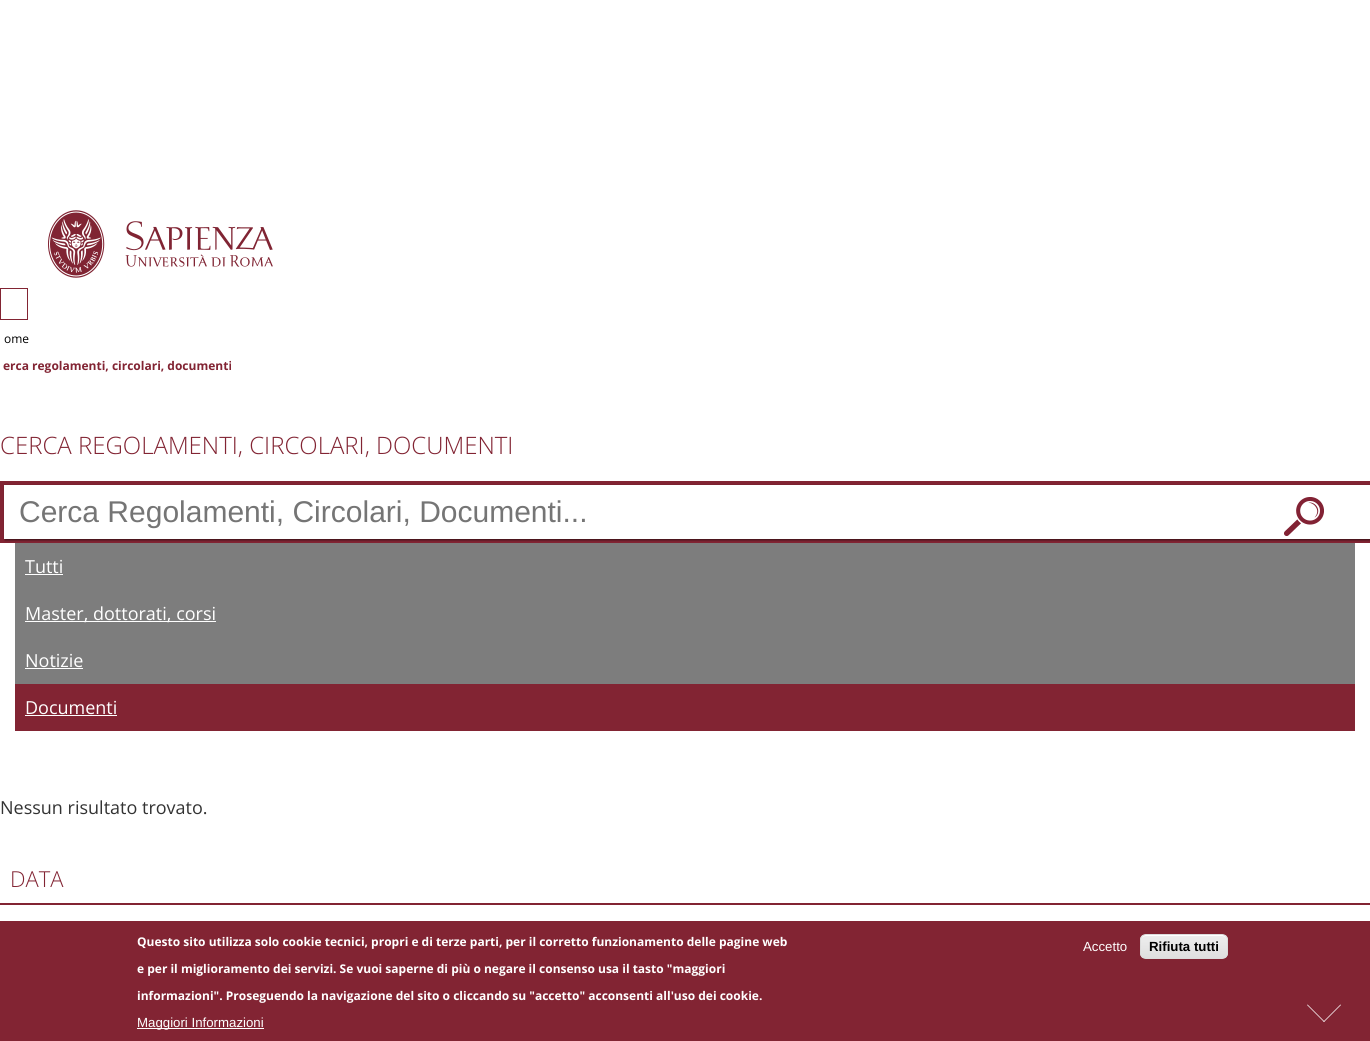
#include <cairo.h>
#include <math.h>
#include <stddef.h>

typedef struct { const char *family; double size; int italic, bold; unsigned color; } style_t;
static cairo_t *ctx;

static void ink(unsigned color) {
    cairo_set_source_rgb(ctx, (color >> 16) / 255.0, (color >> 8 & 255) / 255.0, (color & 255) / 255.0);
}

static void write(double x, double y, const char *s, const style_t *st) {
    cairo_select_font_face(ctx, st->family, st->italic ? CAIRO_FONT_SLANT_ITALIC : CAIRO_FONT_SLANT_NORMAL,
        st->bold ? CAIRO_FONT_WEIGHT_BOLD : CAIRO_FONT_WEIGHT_NORMAL);
    cairo_set_font_size(ctx, st->size);
    ink(st->color);
    cairo_move_to(ctx, x, y);
    cairo_show_text(ctx, s);
}

static void block(double x, double y, double w, double h, unsigned color) {
    ink(color);
    cairo_rectangle(ctx, x, y, w, h);
    cairo_fill(ctx);
}

static void round_path(double x, double y, double w, double h, double r) {
    cairo_new_sub_path(ctx);
    cairo_arc(ctx, x + w - r, y + h - r, r, 0, M_PI / 2);
    cairo_arc(ctx, x + r, y + h - r, r, M_PI / 2, M_PI);
    cairo_arc(ctx, x + r, y + r, r, M_PI, 1.5 * M_PI);
    cairo_arc(ctx, x + w - r, y + r, r, 1.5 * M_PI, 2 * M_PI);
    cairo_close_path(ctx);
}

static void blur_box(double x, double y, double w, double h, double r, double blur, double alpha) {
    cairo_push_group_with_content(ctx, CAIRO_CONTENT_ALPHA);
    cairo_set_operator(ctx, CAIRO_OPERATOR_SOURCE);
    for (int i = 15; i >= -15 && fmin(w, h) + blur * i / 3 > 0; i -= 2) {
        double e = blur * i / 6;
        cairo_set_source_rgba(ctx, 0, 0, 0, alpha * erfc((i - 1) / 8.5) / 2);
        round_path(x - e, y - e, w + 2 * e, h + 2 * e, fmax(0, fmin(r + e + blur * .6, fmin(w, h) / 2 + e)));
        cairo_fill(ctx);
    }
    cairo_pattern_t *soft = cairo_pop_group(ctx);
    cairo_mask(ctx, soft);
    cairo_pattern_destroy(soft);
}

static void paste(const char *path, double x, double y, double w, double h) {
    cairo_surface_t *image = cairo_image_surface_create_from_png(path);
    cairo_save(ctx);
    cairo_set_source_surface(ctx, image, x, y);
    cairo_rectangle(ctx, x, y, w, h);
    cairo_fill(ctx);
    cairo_restore(ctx);
    cairo_surface_destroy(image);
}

static const style_t s1 = {"Open Sans", 12, 0, 0, 0x000000};
static const style_t s2 = {"Open Sans", 12, 0, 1, 0x822433};
static const style_t s3 = {"Open Sans Light", 24, 0, 0, 0x822433};
static const style_t s4 = {"Liberation Sans", 30, 0, 0, 0x757575};
static const style_t s5 = {"Open Sans", 18, 0, 0, 0xffffff};
static const style_t s6 = {"Open Sans", 18, 0, 0, 0x333333};
static const style_t s7 = {"Open Sans Light", 22, 0, 0, 0x822433};
static const style_t s8 = {"Open Sans", 12, 0, 1, 0xffffff};
static const style_t s9 = {"Liberation Sans", 13.25, 0, 0, 0xffffff};
static const style_t s10 = {"Liberation Sans", 13.25, 0, 1, 0x000000};

int main(void) {
    cairo_surface_t *surface = cairo_image_surface_create(CAIRO_FORMAT_RGB24, 1370, 1041);
    ctx = cairo_create(surface);
    cairo_font_options_t *options = cairo_font_options_create();
    cairo_font_options_set_hint_metrics(options, CAIRO_HINT_METRICS_OFF);
    cairo_font_options_set_hint_style(options, CAIRO_HINT_STYLE_NONE);
    cairo_set_font_options(ctx, options);
    cairo_set_miter_limit(ctx, 4);
    cairo_pattern_t *gradient;
    ink(0xffffff);
    cairo_paint(ctx);
    paste("pic1.png", 48, 210, 225, 68);
    cairo_rectangle(ctx, 0.5, 288.5, 27, 31);
    ink(0x822433);
    cairo_set_line_width(ctx, 1);
    cairo_stroke(ctx);
    write(4, 343, "ome", &s1);
    write(3, 370, "erca regolamenti, circolari, documenti", &s2);
    write(0, 454, "CERCA REGOLAMENTI, CIRCOLARI, DOCUMENTI", &s3);
    block(0, 481, 1370, 62, 0x822433);
    block(15, 543, 1340, 141, 0x7d7d7d);
    ink(0x000000);
    blur_box(5, 486, 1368, 54, 0, 1, 0.6);
    block(4, 485, 1366, 54, 0xffffff);
    write(19, 522, "Cerca Regolamenti, Circolari, Documenti...", &s4);
    paste("pic2.png", 1284, 497, 40, 39);
    write(25, 573, "Tutti", &s5);
    block(25, 574, 38, 1, 0xffffff);
    block(25, 621, 191, 1, 0xffffff);
    write(25, 620, "Master, dottorati, corsi", &s5);
    write(25, 667, "Notizie", &s5);
    block(25, 668, 58, 1, 0xffffff);
    block(15, 684, 1340, 47, 0x822433);
    write(25, 714, "Documenti", &s5);
    block(25, 715, 92, 1, 0xffffff);
    write(0, 814, "Nessun risultato trovato.", &s6);
    write(10, 887, "DATA", &s7);
    block(0, 903, 1370, 2, 0x822433);
    block(0, 921, 1370, 120, 0x822433);
    write(137, 946, "Questo sito utilizza solo cookie tecnici, propri e di terze parti, per il corretto funzionamento delle pagine web", &s8);
    write(137, 973, "e per il miglioramento dei servizi. Se vuoi saperne di più o negare il consenso usa il tasto \"maggiori", &s8);
    write(137, 1000, "informazioni\". Proseguendo la navigazione del sito o cliccando su \"accetto\" acconsenti all'uso dei cookie.", &s8);
    block(137, 1028, 127, 1, 0xffffff);
    write(137, 1027, "Maggiori Informazioni", &s9);
    write(1083, 951, "Accetto", &s9);
    cairo_save(ctx);
    round_path(1140, 934, 88, 25, 6);
    cairo_clip(ctx);
    gradient = cairo_pattern_create_linear(1184, 935, 1184, 958);
    cairo_pattern_add_color_stop_rgba(gradient, 0.05, 0.929, 0.929, 0.929, 1);
    cairo_pattern_add_color_stop_rgba(gradient, 1, 0.875, 0.875, 0.875, 1);
    cairo_set_source(ctx, gradient);
    cairo_pattern_destroy(gradient);
    cairo_rectangle(ctx, 1140, 935, 88, 23);
    cairo_fill(ctx);
    cairo_restore(ctx);
    cairo_new_path(ctx);
    cairo_move_to(ctx, 1146, 936);
    cairo_line_to(ctx, 1222, 936);
    cairo_curve_to(ctx, 1225, 936, 1227, 938, 1227, 941);
    cairo_curve_to(ctx, 1227, 932, 1215, 935, 1209, 935);
    cairo_line_to(ctx, 1159, 935);
    cairo_curve_to(ctx, 1153, 935, 1141, 932, 1141, 941);
    cairo_curve_to(ctx, 1141, 938, 1143, 936, 1146, 936);
    cairo_close_path(ctx);
    cairo_fill(ctx);
    round_path(1140.5, 934.5, 87, 24, 5.5);
    ink(0xdcdcdc);
    cairo_stroke(ctx);
    write(1149, 951, "Rifiuta tutti", &s10);
    ink(0xffffff);
    cairo_new_path(ctx);
    cairo_move_to(ctx, 1323.5, 1021.5);
    cairo_line_to(ctx, 1340.5, 1004.5);
    cairo_line_to(ctx, 1341, 1005);
    cairo_line_to(ctx, 1324, 1022);
    cairo_close_path(ctx);
    cairo_fill(ctx);
    cairo_new_path(ctx);
    cairo_move_to(ctx, 1307, 1005);
    cairo_line_to(ctx, 1307.5, 1004.5);
    cairo_line_to(ctx, 1324.5, 1021.5);
    cairo_line_to(ctx, 1324, 1022);
    cairo_close_path(ctx);
    cairo_fill(ctx);
    cairo_surface_write_to_png(surface, "screenshot.png");
    cairo_font_options_destroy(options);
    cairo_destroy(ctx);
    cairo_surface_destroy(surface);
    return 0;
}
